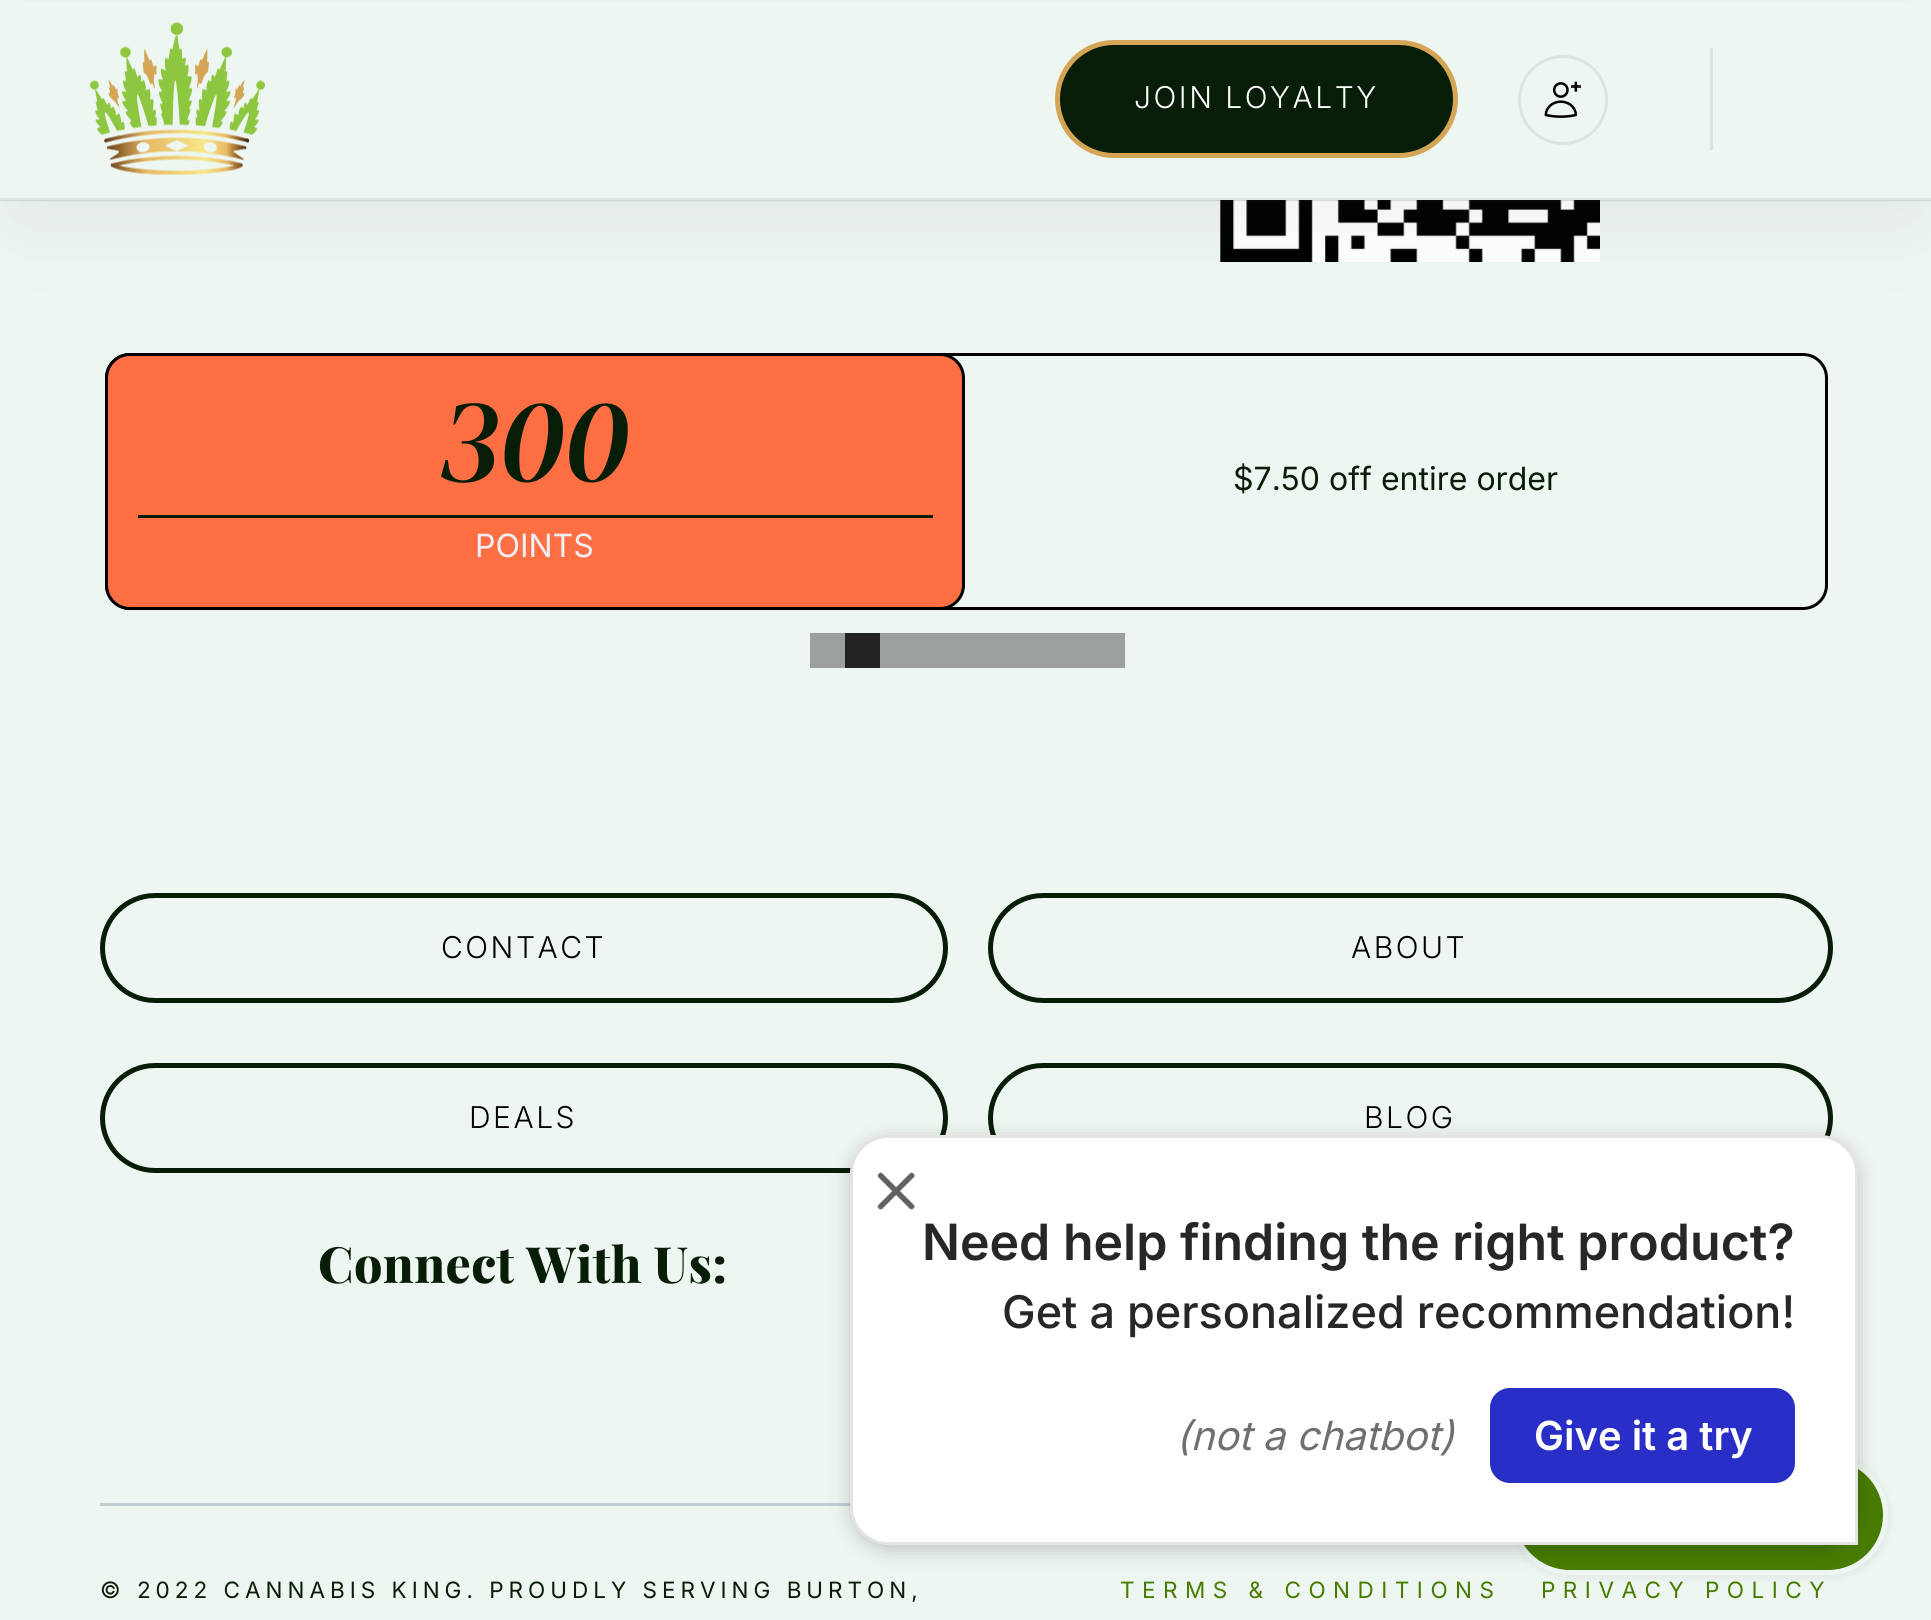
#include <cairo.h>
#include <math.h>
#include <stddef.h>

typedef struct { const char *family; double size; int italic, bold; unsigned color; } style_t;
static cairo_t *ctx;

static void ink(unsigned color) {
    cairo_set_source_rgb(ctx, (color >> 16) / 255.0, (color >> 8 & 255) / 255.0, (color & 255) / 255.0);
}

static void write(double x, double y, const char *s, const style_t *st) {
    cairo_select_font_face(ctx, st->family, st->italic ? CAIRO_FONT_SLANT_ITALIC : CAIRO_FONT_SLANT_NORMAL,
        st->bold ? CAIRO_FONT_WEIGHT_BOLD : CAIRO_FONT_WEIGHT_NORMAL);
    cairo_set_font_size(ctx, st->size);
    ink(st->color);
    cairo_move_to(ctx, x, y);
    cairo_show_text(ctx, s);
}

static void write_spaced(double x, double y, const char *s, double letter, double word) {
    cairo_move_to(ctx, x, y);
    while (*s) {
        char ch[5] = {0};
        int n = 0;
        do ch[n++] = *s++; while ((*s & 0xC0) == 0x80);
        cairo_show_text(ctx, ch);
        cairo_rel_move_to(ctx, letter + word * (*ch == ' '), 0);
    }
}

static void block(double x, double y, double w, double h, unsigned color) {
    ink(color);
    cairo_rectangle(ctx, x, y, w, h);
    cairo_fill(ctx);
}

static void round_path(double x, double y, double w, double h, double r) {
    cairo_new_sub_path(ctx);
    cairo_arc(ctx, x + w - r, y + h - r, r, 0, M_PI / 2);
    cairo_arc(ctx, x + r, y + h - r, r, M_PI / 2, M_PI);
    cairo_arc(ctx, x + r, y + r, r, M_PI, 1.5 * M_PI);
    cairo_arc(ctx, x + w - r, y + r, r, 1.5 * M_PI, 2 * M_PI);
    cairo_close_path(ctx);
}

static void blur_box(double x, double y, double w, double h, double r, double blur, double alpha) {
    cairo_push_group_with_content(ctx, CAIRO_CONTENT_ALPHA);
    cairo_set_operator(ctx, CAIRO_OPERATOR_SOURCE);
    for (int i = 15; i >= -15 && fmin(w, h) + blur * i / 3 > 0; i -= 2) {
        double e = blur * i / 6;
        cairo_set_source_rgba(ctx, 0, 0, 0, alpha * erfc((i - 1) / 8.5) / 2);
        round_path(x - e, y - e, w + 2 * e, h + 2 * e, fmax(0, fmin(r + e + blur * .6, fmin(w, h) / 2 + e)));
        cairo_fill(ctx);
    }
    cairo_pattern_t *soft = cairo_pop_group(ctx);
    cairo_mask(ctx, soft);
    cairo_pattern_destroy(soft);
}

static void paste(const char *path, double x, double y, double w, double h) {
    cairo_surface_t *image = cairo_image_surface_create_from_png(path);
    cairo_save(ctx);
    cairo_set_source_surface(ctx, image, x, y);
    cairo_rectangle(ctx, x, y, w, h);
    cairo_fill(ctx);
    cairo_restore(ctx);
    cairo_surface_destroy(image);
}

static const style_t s1 = {"DM Serif Display", 120, 1, 0, 0x071d07};
static const style_t s2 = {"Inter", 32, 0, 0, 0xeef0f6};
static const style_t s3 = {"Inter", 32, 0, 0, 0x071d07};
static const style_t s4 = {"Inter SemiBold", 50, 0, 0, 0x272727};
static const style_t s5 = {"Inter Medium", 45, 0, 0, 0x272727};
static const style_t s6 = {"Inter", 40, 1, 0, 0x6f6f6f};
static const style_t s7 = {"Inter SemiBold", 40, 0, 0, 0xffffff};

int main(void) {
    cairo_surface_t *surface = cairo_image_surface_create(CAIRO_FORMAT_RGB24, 1931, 1620);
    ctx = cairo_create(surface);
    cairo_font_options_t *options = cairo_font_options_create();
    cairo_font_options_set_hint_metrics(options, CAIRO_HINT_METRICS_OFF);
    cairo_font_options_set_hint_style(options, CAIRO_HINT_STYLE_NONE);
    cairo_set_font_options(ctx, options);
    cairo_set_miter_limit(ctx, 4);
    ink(0xeef6f1);
    cairo_paint(ctx);
    paste("pic3.png", 1220, 200, 380, 62);
    cairo_set_source_rgba(ctx, 0.161, 0.169, 0.306, 0.07);
    cairo_rectangle(ctx, 0, 200, 1931, 1);
    cairo_fill(ctx);
    ink(0x3e4174);
    blur_box(20, 50, 1893, 160, 0, 45, 0.1);
    block(0, 2, 1931, 198, 0xeef6f1);
    cairo_set_source_rgba(ctx, 0.161, 0.169, 0.306, 0.07);
    cairo_rectangle(ctx, 0, 198, 1931, 3);
    cairo_fill(ctx);
    paste("pic1.png", 90, 22, 175, 153);
    ink(0x071d07);
    round_path(1057.5, 42.5, 398, 113, 56.5);
    cairo_fill_preserve(ctx);
    ink(0xd4a555);
    cairo_set_line_width(ctx, 5);
    cairo_stroke(ctx);
    cairo_select_font_face(ctx, "Inter Light", CAIRO_FONT_SLANT_NORMAL, CAIRO_FONT_WEIGHT_NORMAL);
    cairo_set_font_size(ctx, 30);
    ink(0xffffff);
    write_spaced(1134, 108, "JOIN LOYALTY", 2.5, 0);
    cairo_new_path(ctx);
    cairo_arc(ctx, 1563, 100, 43.5, 0, 2 * M_PI);
    ink(0xdae4e2);
    cairo_set_line_width(ctx, 3);
    cairo_stroke(ctx);
    paste("pic2.png", 1544, 81, 37, 37);
    block(1710, 48, 3, 102, 0xdae4e2);
    round_path(106.5, 354.5, 1720, 254, 23.5);
    ink(0x000000);
    cairo_stroke(ctx);
    ink(0xff6f44);
    round_path(106.5, 354.5, 857, 254, 23.5);
    cairo_fill_preserve(ctx);
    ink(0x000000);
    cairo_stroke(ctx);
    block(138, 515, 795, 3, 0x071d07);
    write(439, 481, "300", &s1);
    write(475, 557, "POINTS", &s2);
    write(1233, 490, "$7.50 off entire order", &s3);
    block(810, 633, 35, 35, 0x9ca19e);
    block(845, 633, 35, 35, 0x222222);
    block(880, 633, 245, 35, 0x9ca19e);
    round_path(102.5, 895.5, 843, 105, 52.5);
    ink(0x071d07);
    cairo_set_line_width(ctx, 5);
    cairo_stroke(ctx);
    cairo_select_font_face(ctx, "Inter Light", CAIRO_FONT_SLANT_NORMAL, CAIRO_FONT_WEIGHT_NORMAL);
    cairo_set_font_size(ctx, 30);
    ink(0x000000);
    write_spaced(441, 958, "CONTACT", 2.5, 0);
    round_path(990.5, 895.5, 840, 105, 52.5);
    ink(0x071d07);
    cairo_stroke(ctx);
    ink(0x000000);
    write_spaced(1351, 958, "ABOUT", 2.5, 0);
    round_path(102.5, 1065.5, 843, 105, 52.5);
    ink(0x071d07);
    cairo_stroke(ctx);
    ink(0x000000);
    write_spaced(469, 1128, "DEALS", 2.5, 0);
    round_path(990.5, 1065.5, 840, 105, 52.5);
    ink(0x071d07);
    cairo_stroke(ctx);
    ink(0x000000);
    write_spaced(1364, 1128, "BLOG", 2.5, 0);
    cairo_select_font_face(ctx, "Playfair Display ExtraBold", CAIRO_FONT_SLANT_NORMAL, CAIRO_FONT_WEIGHT_NORMAL);
    cairo_set_font_size(ctx, 50);
    ink(0x071d07);
    write_spaced(318, 1283, "Connect With Us:", 0.4, 0);
    block(100, 1503, 750, 3, 0xc0ced0);
    cairo_select_font_face(ctx, "Inter", CAIRO_FONT_SLANT_NORMAL, CAIRO_FONT_WEIGHT_NORMAL);
    cairo_set_font_size(ctx, 22.5);
    ink(0x071d07);
    write_spaced(100, 1598, "© 2022 CANNABIS KING. PROUDLY SERVING BURTON,", 5, 0);
    ink(0x477c00);
    write_spaced(1120, 1598, "TERMS & CONDITIONS", 7.5, 0);
    write_spaced(1541, 1598, "PRIVACY POLICY", 7.5, 0);
    ink(0x292b4e);
    blur_box(1513, 1458, 377, 120, 60, 4, 0.07);
    ink(0x477c00);
    round_path(1512.5, 1457.5, 373, 115, 57.5);
    cairo_fill_preserve(ctx);
    ink(0xeef6f1);
    cairo_stroke(ctx);
    ink(0x000000);
    blur_box(850, 1140, 1008, 410, 38, 10, 0.2);
    ink(0xffffff);
    cairo_new_path(ctx);
    cairo_move_to(ctx, 888, 1136.5);
    cairo_line_to(ctx, 1820, 1136.5);
    cairo_curve_to(ctx, 1840, 1136.5, 1856.5, 1153, 1856.5, 1173);
    cairo_line_to(ctx, 1856.5, 1543.5);
    cairo_line_to(ctx, 888, 1543.5);
    cairo_curve_to(ctx, 868, 1543.5, 851.5, 1527, 851.5, 1507);
    cairo_line_to(ctx, 851.5, 1173);
    cairo_curve_to(ctx, 851.5, 1153, 868, 1136.5, 888, 1136.5);
    cairo_close_path(ctx);
    cairo_fill_preserve(ctx);
    ink(0xe3e3e3);
    cairo_set_line_width(ctx, 3);
    cairo_stroke(ctx);
    paste("pic4.png", 877, 1172, 38, 38);
    write(922, 1260, "Need help finding the right product?", &s4);
    write(1002, 1328, "Get a personalized recommendation!", &s5);
    write(1176, 1450, "(not a chatbot)", &s6);
    ink(0x292ec7);
    round_path(1491.5, 1389.5, 302, 92, 18.5);
    cairo_fill_preserve(ctx);
    cairo_stroke(ctx);
    write(1534, 1450, "Give it a try", &s7);
    cairo_surface_write_to_png(surface, "screenshot.png");
    cairo_font_options_destroy(options);
    cairo_destroy(ctx);
    cairo_surface_destroy(surface);
    return 0;
}
